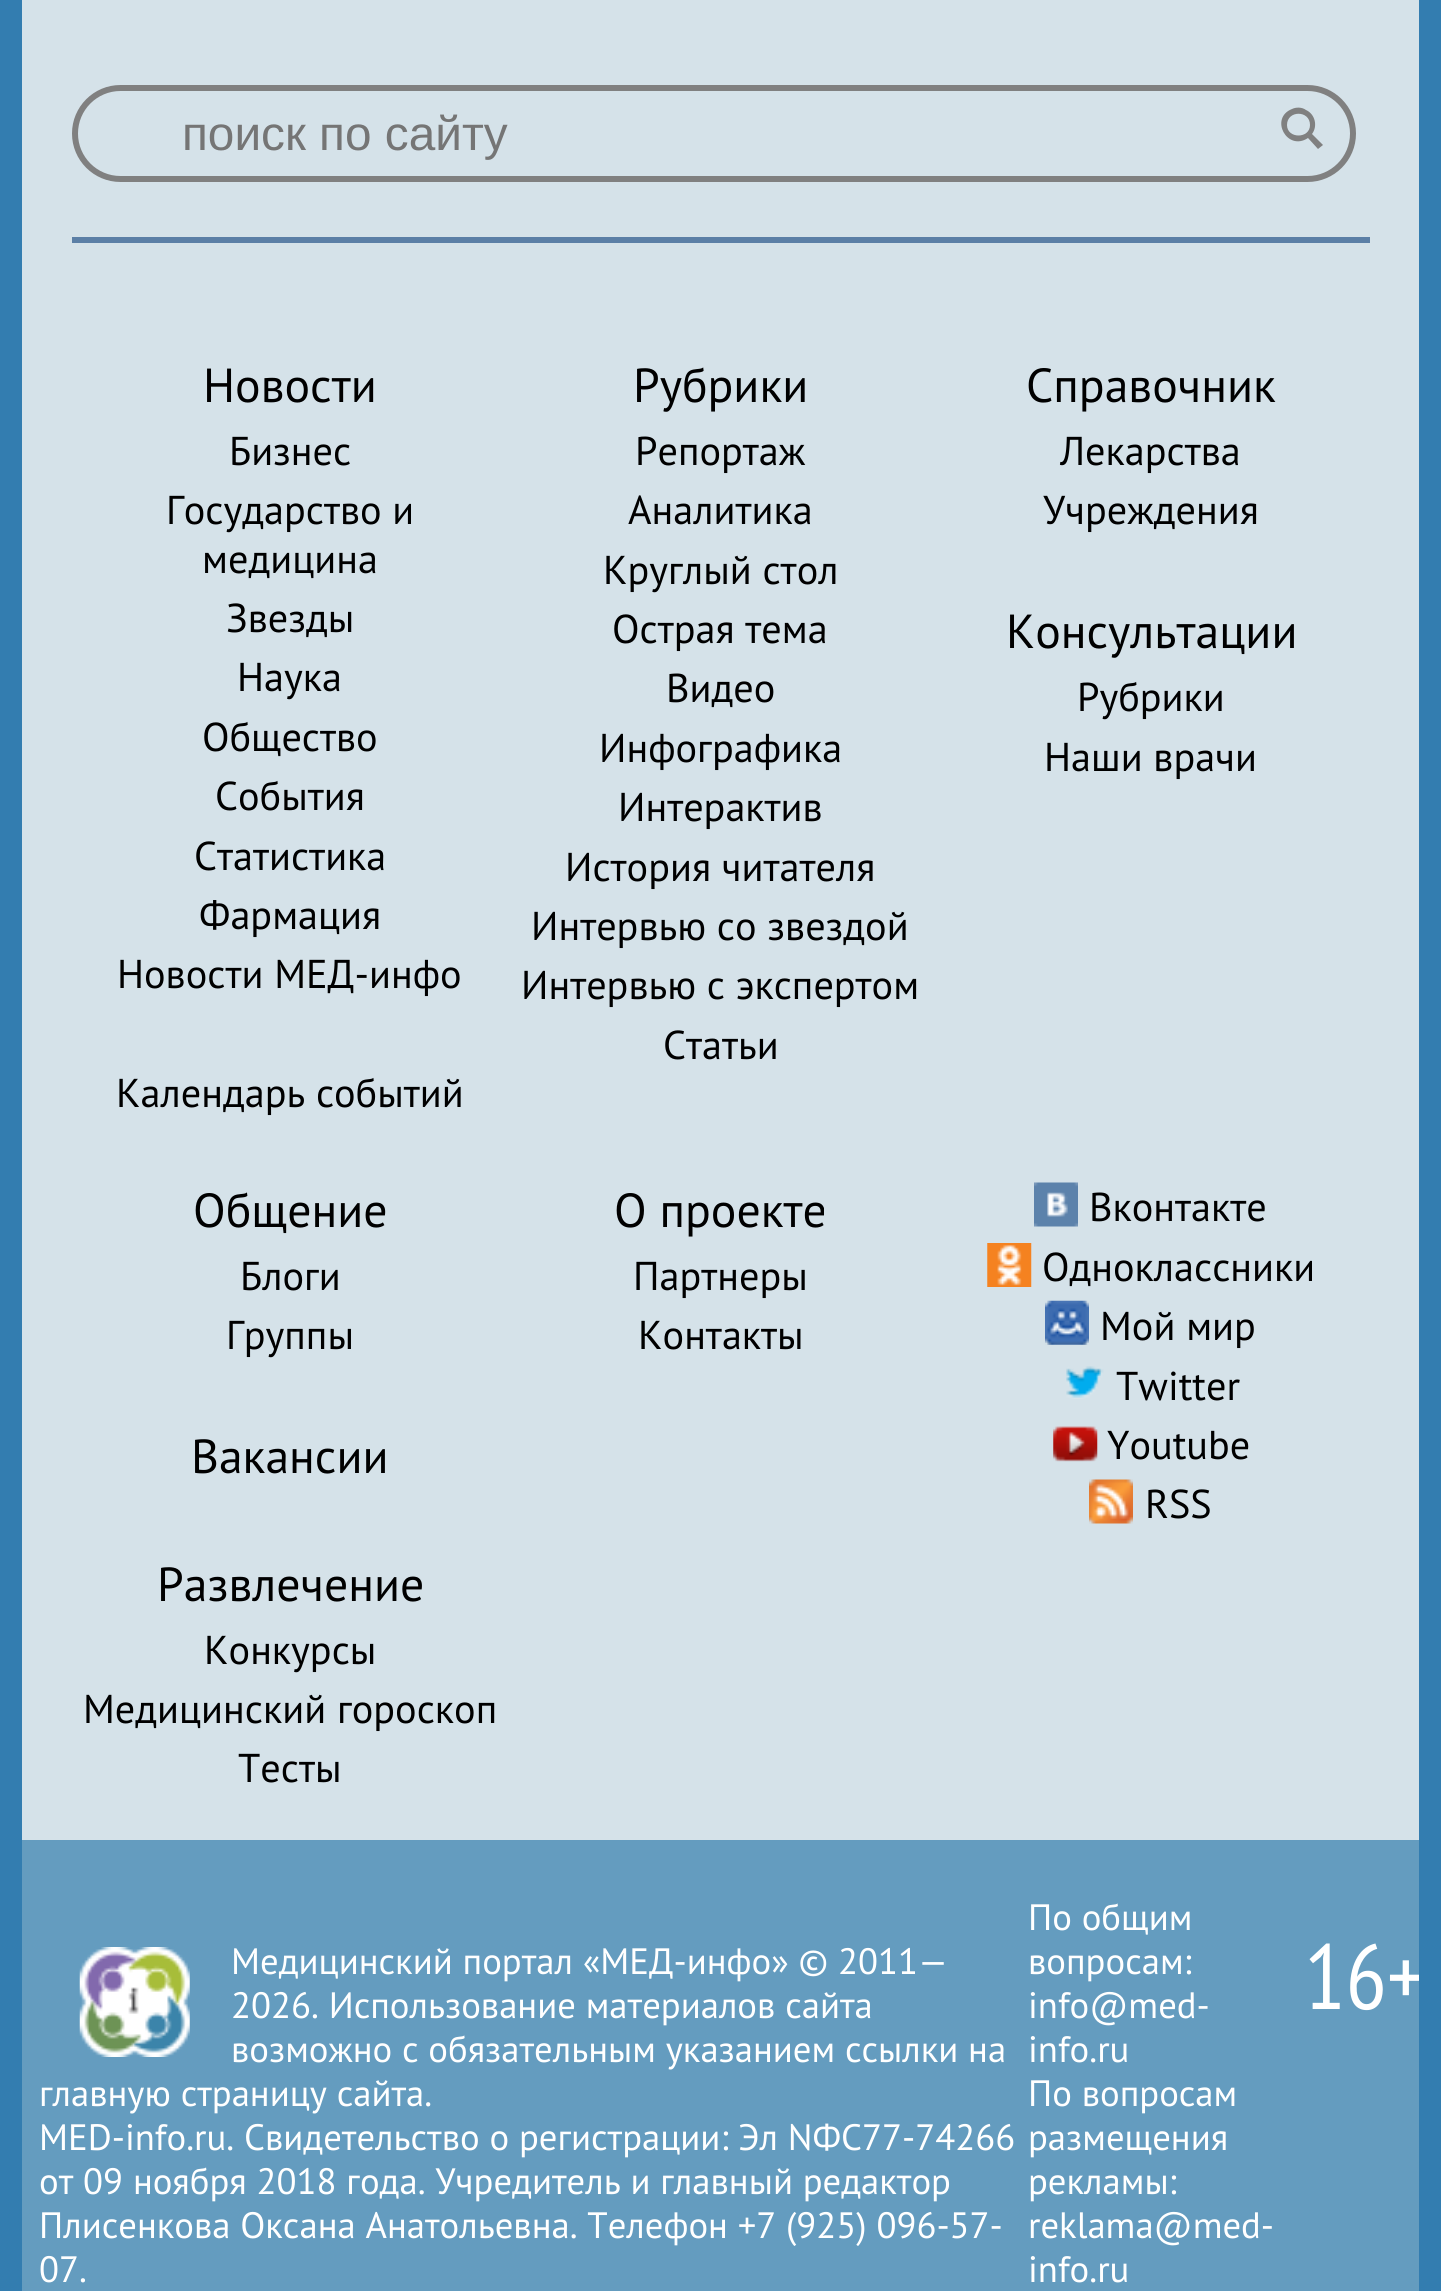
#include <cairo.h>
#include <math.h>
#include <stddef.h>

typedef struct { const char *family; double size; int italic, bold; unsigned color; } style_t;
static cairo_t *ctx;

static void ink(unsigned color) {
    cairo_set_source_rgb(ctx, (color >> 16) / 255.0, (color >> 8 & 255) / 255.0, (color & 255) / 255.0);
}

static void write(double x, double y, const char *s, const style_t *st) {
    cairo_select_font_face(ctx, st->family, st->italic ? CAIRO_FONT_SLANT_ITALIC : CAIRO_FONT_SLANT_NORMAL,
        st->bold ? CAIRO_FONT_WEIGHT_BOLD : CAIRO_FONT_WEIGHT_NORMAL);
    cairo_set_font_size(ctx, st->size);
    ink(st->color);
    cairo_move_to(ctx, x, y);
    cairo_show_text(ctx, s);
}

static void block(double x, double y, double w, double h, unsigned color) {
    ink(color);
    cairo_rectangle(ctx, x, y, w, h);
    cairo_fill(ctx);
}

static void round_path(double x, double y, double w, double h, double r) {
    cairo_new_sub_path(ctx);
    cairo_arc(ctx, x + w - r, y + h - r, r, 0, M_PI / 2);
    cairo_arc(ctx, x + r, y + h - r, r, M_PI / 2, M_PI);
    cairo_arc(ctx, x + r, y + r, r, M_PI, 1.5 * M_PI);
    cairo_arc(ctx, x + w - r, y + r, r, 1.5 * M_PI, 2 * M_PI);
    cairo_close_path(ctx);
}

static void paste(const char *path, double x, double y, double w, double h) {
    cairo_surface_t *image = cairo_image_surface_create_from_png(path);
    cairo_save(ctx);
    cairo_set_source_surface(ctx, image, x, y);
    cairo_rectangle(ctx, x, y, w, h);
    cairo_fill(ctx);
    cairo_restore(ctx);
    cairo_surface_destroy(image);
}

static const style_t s1 = {"Liberation Sans", 47.75, 0, 0, 0x757575};
static const style_t s2 = {"PT Sans", 47.75, 0, 0, 0x000000};
static const style_t s3 = {"PT Sans", 40.25, 0, 0, 0x000000};
static const style_t s4 = {"PT Sans", 36.7, 0, 0, 0xffffff};
static const style_t s5 = {"PT Sans Narrow", 92, 0, 0, 0xffffff};

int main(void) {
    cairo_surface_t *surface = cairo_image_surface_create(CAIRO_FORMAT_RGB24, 1441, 2291);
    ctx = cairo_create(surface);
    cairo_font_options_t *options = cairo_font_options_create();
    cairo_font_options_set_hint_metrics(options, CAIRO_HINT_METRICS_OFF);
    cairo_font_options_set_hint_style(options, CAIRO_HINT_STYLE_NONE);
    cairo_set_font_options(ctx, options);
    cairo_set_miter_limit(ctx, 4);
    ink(0x337db0);
    cairo_paint(ctx);
    block(22, 0, 1397, 1840, 0xd5e2e9);
    round_path(75, 88, 1278, 91, 45.5);
    ink(0x808080);
    cairo_set_line_width(ctx, 6);
    cairo_stroke(ctx);
    write(182, 150, "поиск по сайту", &s1);
    ink(0x808080);
    cairo_new_path(ctx);
    cairo_move_to(ctx, 1310, 125);
    cairo_curve_to(ctx, 1310, 110, 1287, 110, 1287, 125);
    cairo_curve_to(ctx, 1287, 139, 1310, 139, 1310, 125);
    cairo_close_path(ctx);
    cairo_move_to(ctx, 1312, 134);
    cairo_line_to(ctx, 1323, 145);
    cairo_line_to(ctx, 1318, 149);
    cairo_line_to(ctx, 1308, 138);
    cairo_curve_to(ctx, 1287, 152, 1269, 118, 1292, 109);
    cairo_curve_to(ctx, 1296, 107, 1302, 107, 1306, 110);
    cairo_curve_to(ctx, 1315, 114, 1318, 126, 1312, 134);
    cairo_close_path(ctx);
    cairo_fill(ctx);
    block(72, 237, 1298, 6, 0x5b7fa6);
    block(22, 1840, 1397, 451, 0x649cbf);
    write(203, 402, "Новости", &s2);
    write(229, 465, "Бизнес", &s3);
    write(166, 524, "Государство и", &s3);
    write(202, 573, "медицина", &s3);
    write(226, 632, "Звезды", &s3);
    write(237, 691, "Наука", &s3);
    write(202, 751, "Общество", &s3);
    write(215, 810, "События", &s3);
    write(194, 870, "Статистика", &s3);
    write(199, 929, "Фармация", &s3);
    write(117, 988, "Новости МЕД-инфо", &s3);
    write(116, 1107, "Календарь событий", &s3);
    write(633, 402, "Рубрики", &s2);
    write(635, 465, "Репортаж", &s3);
    write(628, 524, "Аналитика", &s3);
    write(603, 584, "Круглый стол", &s3);
    write(612, 643, "Острая тема", &s3);
    write(666, 702, "Видео", &s3);
    write(599, 762, "Инфографика", &s3);
    write(618, 821, "Интерактив", &s3);
    write(565, 881, "История читателя", &s3);
    write(531, 940, "Интервью со звездой", &s3);
    write(521, 999, "Интервью с экспертом", &s3);
    write(663, 1059, "Статьи", &s3);
    write(1026, 402, "Справочник", &s2);
    write(1060, 465, "Лекарства", &s3);
    write(1043, 524, "Учреждения", &s3);
    write(1006, 648, "Консультации", &s2);
    write(1077, 711, "Рубрики", &s3);
    write(1044, 771, "Наши врачи", &s3);
    write(193, 1227, "Общение", &s2);
    write(240, 1290, "Блоги", &s3);
    write(226, 1349, "Группы", &s3);
    write(191, 1473, "Вакансии", &s2);
    write(157, 1601, "Развлечение", &s2);
    write(204, 1664, "Конкурсы", &s3);
    write(83, 1723, "Медицинский гороскоп", &s3);
    write(238, 1782, "Тесты", &s3);
    write(614, 1227, "О проекте", &s2);
    write(633, 1290, "Партнеры", &s3);
    write(638, 1349, "Контакты", &s3);
    paste("pic1.png", 1034, 1182, 44, 45);
    write(1089, 1221, "Вконтакте", &s3);
    paste("pic2.png", 987, 1243, 45, 44);
    write(1042, 1281, "Одноклассники", &s3);
    paste("pic3.png", 1045, 1300, 44, 45);
    write(1100, 1340, "Мой мир", &s3);
    paste("pic4.png", 1066, 1366, 38, 33);
    write(1116, 1400, "Twitter", &s3);
    paste("pic5.png", 1053, 1426, 45, 36);
    write(1107, 1459, "Youtube", &s3);
    paste("pic6.png", 1089, 1479, 44, 45);
    write(1145, 1518, "RSS", &s3);
    paste("pic7.png", 79, 1947, 111, 110);
    write(231, 1974, "Медицинский портал «МЕД-инфо» © 2011—", &s4);
    write(231, 2018, "2026. Использование материалов сайта", &s4);
    write(231, 2062, "возможно с обязательным указанием ссылки на", &s4);
    write(39, 2106, "главную страницу сайта.", &s4);
    write(39, 2150, "MED-info.ru. Свидетельство о регистрации: Эл NФС77-74266", &s4);
    write(39, 2194, "от 09 ноября 2018 года. Учредитель и главный редактор", &s4);
    write(39, 2238, "Плисенкова Оксана Анатольевна. Телефон +7 (925) 096-57-", &s4);
    write(39, 2282, "07.", &s4);
    write(1028, 1930, "По общим", &s4);
    write(1028, 1974, "вопросам:", &s4);
    write(1028, 2018, "info@med-", &s4);
    write(1028, 2062, "info.ru", &s4);
    write(1028, 2106, "По вопросам", &s4);
    write(1028, 2150, "размещения", &s4);
    write(1028, 2194, "рекламы:", &s4);
    write(1028, 2238, "reklama@med-", &s4);
    write(1028, 2282, "info.ru", &s4);
    cairo_save(ctx);
    cairo_rectangle(ctx, 22, 0, 1397, 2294);
    cairo_clip(ctx);
    write(1304, 2009, "16+", &s5);
    cairo_restore(ctx);
    cairo_surface_write_to_png(surface, "screenshot.png");
    cairo_font_options_destroy(options);
    cairo_destroy(ctx);
    cairo_surface_destroy(surface);
    return 0;
}
